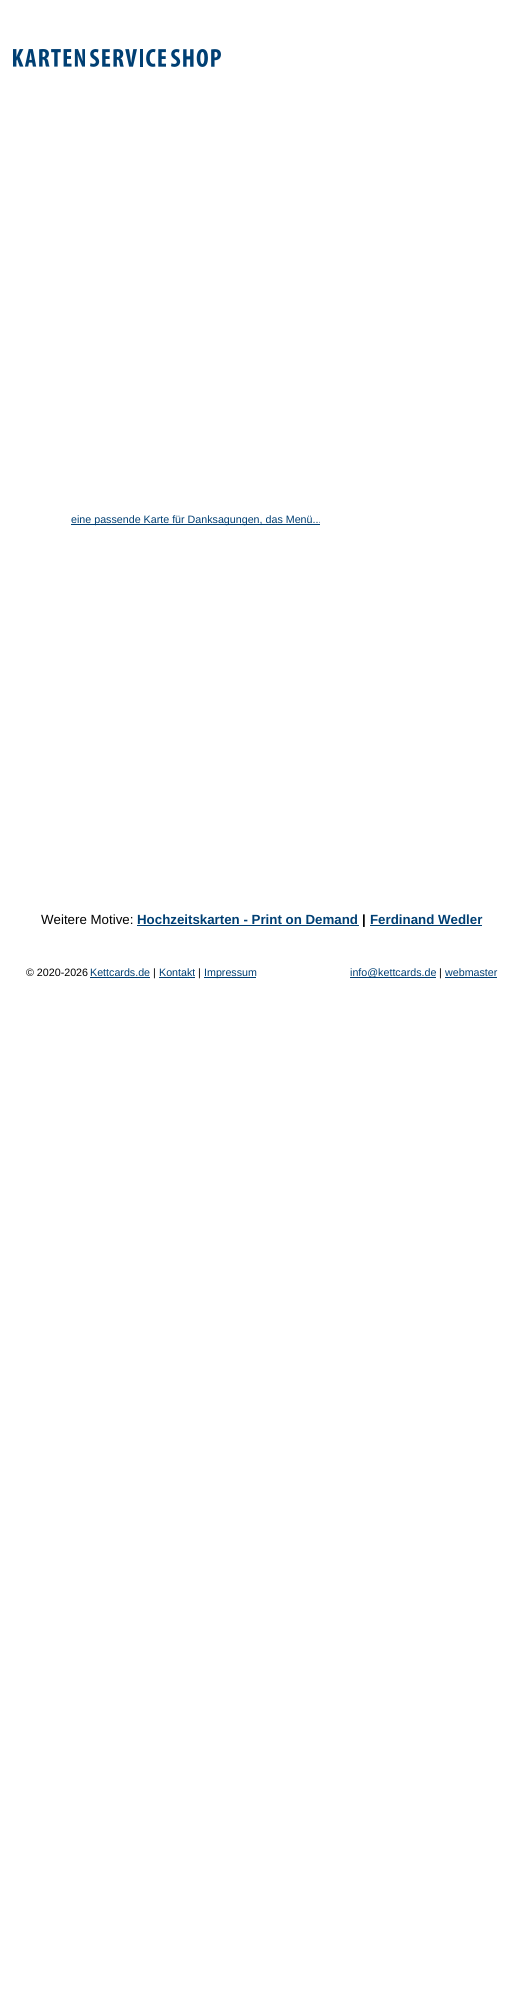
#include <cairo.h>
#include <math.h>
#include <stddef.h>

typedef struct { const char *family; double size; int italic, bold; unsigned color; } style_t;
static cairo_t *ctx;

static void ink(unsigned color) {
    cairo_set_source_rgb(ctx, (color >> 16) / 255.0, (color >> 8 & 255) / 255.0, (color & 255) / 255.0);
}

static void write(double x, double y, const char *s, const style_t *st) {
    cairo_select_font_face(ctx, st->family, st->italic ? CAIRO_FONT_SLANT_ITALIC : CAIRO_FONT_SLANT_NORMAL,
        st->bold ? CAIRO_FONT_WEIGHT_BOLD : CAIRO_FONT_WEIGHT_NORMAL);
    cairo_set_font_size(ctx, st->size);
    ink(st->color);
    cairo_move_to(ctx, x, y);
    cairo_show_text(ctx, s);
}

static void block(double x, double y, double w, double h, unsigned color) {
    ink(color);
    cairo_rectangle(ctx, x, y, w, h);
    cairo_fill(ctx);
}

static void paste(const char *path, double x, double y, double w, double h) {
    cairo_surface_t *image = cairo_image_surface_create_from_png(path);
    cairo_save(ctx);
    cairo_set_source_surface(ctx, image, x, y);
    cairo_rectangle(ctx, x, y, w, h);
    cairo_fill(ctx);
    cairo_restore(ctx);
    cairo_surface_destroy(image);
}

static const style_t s1 = {"Liberation Sans", 10.7, 0, 0, 0x003f73};
static const style_t s2 = {"Liberation Sans", 13.3, 0, 0, 0x000000};
static const style_t s3 = {"Liberation Sans", 13.3, 0, 1, 0x003f73};
static const style_t s4 = {"Liberation Sans", 13.3, 0, 1, 0x000000};
static const style_t s5 = {"Liberation Sans", 10.7, 0, 0, 0x000000};

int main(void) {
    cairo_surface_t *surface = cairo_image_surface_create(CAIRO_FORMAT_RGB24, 523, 2004);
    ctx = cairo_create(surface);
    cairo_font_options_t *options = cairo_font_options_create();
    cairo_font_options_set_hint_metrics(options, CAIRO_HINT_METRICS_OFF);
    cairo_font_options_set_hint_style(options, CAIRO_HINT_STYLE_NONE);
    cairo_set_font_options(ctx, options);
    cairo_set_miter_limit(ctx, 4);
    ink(0xffffff);
    cairo_paint(ctx);
    paste("pic1.png", 13, 49, 72, 18);
    paste("pic2.png", 90, 49, 76, 18);
    paste("pic3.png", 171, 49, 50, 18);
    block(71, 524, 249, 1, 0x003f73);
    write(71, 523, "eine passende Karte für Danksagungen, das Menü...", &s1);
    write(41, 924, "Weitere Motive:", &s2);
    write(137, 924, "Hochzeitskarten - Print on Demand", &s3);
    block(137, 925, 222, 1, 0x003f73);
    write(362, 924, "|", &s4);
    write(370, 924, "Ferdinand Wedler", &s3);
    block(370, 925, 112, 1, 0x003f73);
    write(26, 976, "© 2020-2026", &s5);
    write(90, 976, "Kettcards.de", &s1);
    block(90, 977, 60, 1, 0x003f73);
    write(153, 976, "|", &s5);
    write(159, 976, "Kontakt", &s1);
    block(159, 977, 36, 1, 0x003f73);
    write(198, 976, "|", &s5);
    block(204, 977, 52, 1, 0x003f73);
    write(204, 976, "Impressum", &s1);
    block(350, 977, 86, 1, 0x003f73);
    write(350, 976, "info@kettcards.de", &s1);
    write(439, 976, "|", &s5);
    write(445, 976, "webmaster", &s1);
    block(445, 977, 52, 1, 0x003f73);
    cairo_surface_write_to_png(surface, "screenshot.png");
    cairo_font_options_destroy(options);
    cairo_destroy(ctx);
    cairo_surface_destroy(surface);
    return 0;
}
